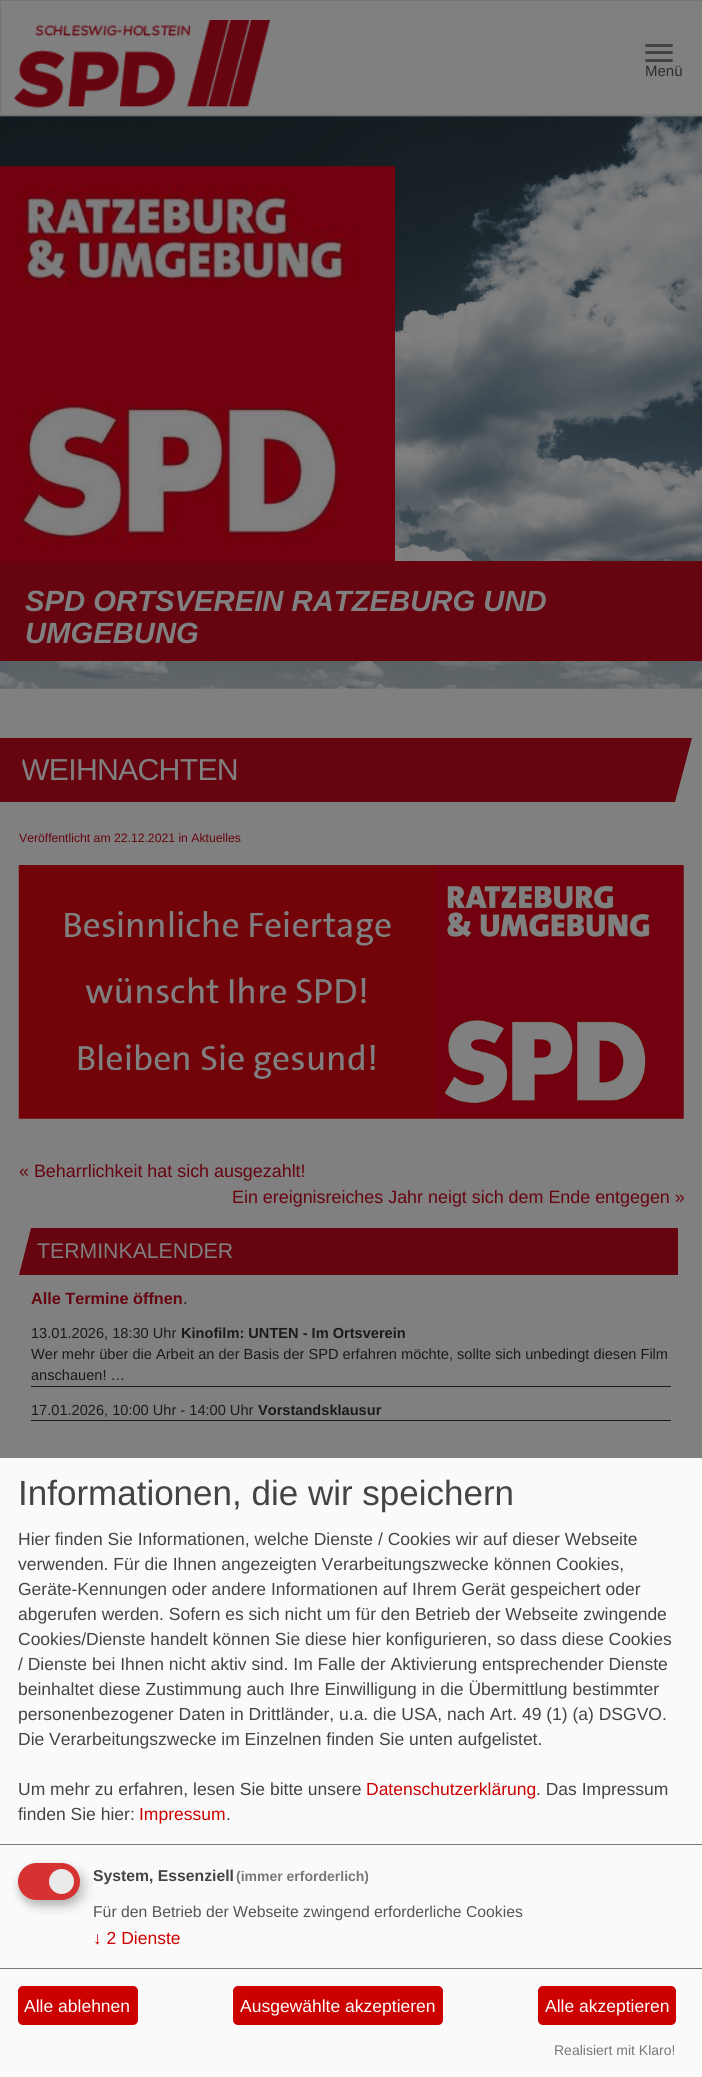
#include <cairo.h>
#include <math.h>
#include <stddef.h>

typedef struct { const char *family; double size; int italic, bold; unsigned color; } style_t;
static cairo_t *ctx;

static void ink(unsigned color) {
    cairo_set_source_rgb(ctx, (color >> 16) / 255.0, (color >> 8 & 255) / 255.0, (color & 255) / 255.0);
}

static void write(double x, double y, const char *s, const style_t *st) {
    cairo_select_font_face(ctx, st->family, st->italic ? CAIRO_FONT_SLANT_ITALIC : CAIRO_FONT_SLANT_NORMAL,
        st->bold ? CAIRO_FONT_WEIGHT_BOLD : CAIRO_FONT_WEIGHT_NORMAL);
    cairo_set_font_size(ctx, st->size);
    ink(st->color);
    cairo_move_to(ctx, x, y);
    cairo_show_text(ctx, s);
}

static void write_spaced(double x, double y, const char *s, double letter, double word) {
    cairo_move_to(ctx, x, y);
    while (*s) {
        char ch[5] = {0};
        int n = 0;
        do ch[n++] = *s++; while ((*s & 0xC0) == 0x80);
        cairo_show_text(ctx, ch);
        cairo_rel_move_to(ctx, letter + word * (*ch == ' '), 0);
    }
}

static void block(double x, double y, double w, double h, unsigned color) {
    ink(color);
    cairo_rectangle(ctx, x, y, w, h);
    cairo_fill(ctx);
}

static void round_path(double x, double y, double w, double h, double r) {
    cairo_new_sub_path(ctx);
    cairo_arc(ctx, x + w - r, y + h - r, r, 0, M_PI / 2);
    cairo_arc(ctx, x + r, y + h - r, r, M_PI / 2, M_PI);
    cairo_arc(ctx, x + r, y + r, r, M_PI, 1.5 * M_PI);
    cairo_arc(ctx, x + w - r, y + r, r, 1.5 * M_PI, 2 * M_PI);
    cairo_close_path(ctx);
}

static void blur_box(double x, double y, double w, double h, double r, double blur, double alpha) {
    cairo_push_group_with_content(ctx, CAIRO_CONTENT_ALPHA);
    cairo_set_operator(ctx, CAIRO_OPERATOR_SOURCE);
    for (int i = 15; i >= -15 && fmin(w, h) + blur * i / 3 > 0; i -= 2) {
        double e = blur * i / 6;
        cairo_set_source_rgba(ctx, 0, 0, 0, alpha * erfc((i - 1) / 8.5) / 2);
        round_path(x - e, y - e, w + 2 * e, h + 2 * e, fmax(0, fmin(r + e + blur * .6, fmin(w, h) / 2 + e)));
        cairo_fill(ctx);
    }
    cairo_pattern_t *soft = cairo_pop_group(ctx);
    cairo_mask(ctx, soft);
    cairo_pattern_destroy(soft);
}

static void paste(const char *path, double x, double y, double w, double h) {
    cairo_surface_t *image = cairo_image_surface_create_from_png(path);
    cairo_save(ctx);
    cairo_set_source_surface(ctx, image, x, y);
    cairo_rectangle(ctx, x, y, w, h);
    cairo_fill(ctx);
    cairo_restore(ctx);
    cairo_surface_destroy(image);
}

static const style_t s1 = {"Liberation Sans", 15, 0, 0, 0x2c2c2d};
static const style_t s2 = {"Liberation Sans", 29.25, 1, 1, 0x808080};
static const style_t s3 = {"Liberation Sans", 12.2, 0, 0, 0x66040f};
static const style_t s4 = {"Liberation Sans", 17.9, 0, 0, 0x66040f};
static const style_t s5 = {"Liberation Sans", 21.25, 0, 0, 0x808080};
static const style_t s6 = {"Liberation Sans", 16.25, 0, 1, 0x66040f};
static const style_t s7 = {"Liberation Sans", 16.25, 0, 0, 0x1a1a1a};
static const style_t s8 = {"Liberation Sans", 14.6, 0, 0, 0x1a1a1a};
static const style_t s9 = {"Liberation Sans", 14.6, 0, 1, 0x1a1a1a};
static const style_t s10 = {"Liberation Sans", 35, 0, 0, 0x444444};
static const style_t s11 = {"Liberation Sans", 17.5, 0, 0, 0x444444};
static const style_t s12 = {"Liberation Sans", 17.5, 0, 0, 0xcd0000};
static const style_t s13 = {"Liberation Sans", 15.75, 0, 1, 0x444444};
static const style_t s14 = {"Liberation Sans", 14, 0, 1, 0x777777};
static const style_t s15 = {"Liberation Sans", 15.75, 0, 0, 0x555555};
static const style_t s16 = {"Liberation Sans", 17.5, 0, 0, 0xffffff};
static const style_t s17 = {"Liberation Sans", 14, 0, 0, 0x777777};

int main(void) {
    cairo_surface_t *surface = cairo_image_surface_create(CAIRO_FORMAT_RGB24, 702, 2077);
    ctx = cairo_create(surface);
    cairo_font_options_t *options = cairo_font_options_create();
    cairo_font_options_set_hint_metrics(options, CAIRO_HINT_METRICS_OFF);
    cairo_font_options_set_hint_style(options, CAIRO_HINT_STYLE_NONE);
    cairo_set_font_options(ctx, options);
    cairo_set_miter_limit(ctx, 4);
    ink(0x808080);
    cairo_paint(ctx);
    cairo_rectangle(ctx, 0.5, 0.5, 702, 115);
    ink(0x747474);
    cairo_set_line_width(ctx, 1);
    cairo_stroke(ctx);
    block(1, 114, 700, 1, 0x777777);
    paste("pic1.png", 13, 20, 257, 88);
    ink(0x444444);
    round_path(645, 44, 28, 3, 1.5);
    cairo_fill(ctx);
    round_path(645, 51, 28, 3, 1.5);
    cairo_fill(ctx);
    round_path(645, 59, 28, 3, 1.5);
    cairo_fill(ctx);
    write(645, 76, "Menü", &s1);
    paste("pic2.png", 0, 116, 702, 573);
    paste("pic3.png", 0, 166, 395, 395);
    block(0, 561, 702, 100, 0x66040f);
    write(25, 611, "SPD ORTSVEREIN RATZEBURG UND", &s2);
    write(25, 643, "UMGEBUNG", &s2);
    ink(0x66040f);
    cairo_new_path(ctx);
    cairo_move_to(ctx, 27, 738);
    cairo_line_to(ctx, 692, 738);
    cairo_line_to(ctx, 675, 802);
    cairo_line_to(ctx, 10, 802);
    cairo_close_path(ctx);
    cairo_fill(ctx);
    cairo_select_font_face(ctx, "Liberation Sans", CAIRO_FONT_SLANT_NORMAL, CAIRO_FONT_WEIGHT_NORMAL);
    cairo_set_font_size(ctx, 30.25);
    ink(0x808080);
    write_spaced(21, 780, "WEIHNACHTEN", -0.75, 0);
    ink(0x66040f);
    cairo_new_path(ctx);
    cairo_move_to(ctx, -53, 738);
    cairo_line_to(ctx, 29, 738);
    cairo_line_to(ctx, 11, 802);
    cairo_line_to(ctx, -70, 802);
    cairo_close_path(ctx);
    cairo_fill(ctx);
    write(19, 842, "Veröffentlicht am 22.12.2021 in Aktuelles", &s3);
    paste("pic4.png", 18, 865, 666, 254);
    write(19, 1177, "« Beharrlichkeit hat sich ausgezahlt!", &s4);
    write(232, 1203, "Ein ereignisreiches Jahr neigt sich dem Ende entgegen »", &s4);
    cairo_new_path(ctx);
    cairo_move_to(ctx, 31, 1228);
    cairo_line_to(ctx, 677, 1228);
    cairo_line_to(ctx, 665, 1275);
    cairo_line_to(ctx, 19, 1275);
    cairo_close_path(ctx);
    cairo_fill(ctx);
    write(37, 1258, "TERMINKALENDER", &s5);
    block(665, 1228, 13, 47, 0x66040f);
    write(31, 1304, "Alle Termine öffnen", &s6);
    write(183, 1304, ".", &s7);
    block(31, 1386, 640, 1, 0x1a1a1a);
    write(31, 1338, "13.01.2026, 18:30 Uhr", &s8);
    write(181, 1338, "Kinofilm: UNTEN - Im Ortsverein", &s9);
    write(31, 1359, "Wer mehr über die Arbeit an der Basis der SPD erfahren möchte, sollte sich unbedingt diesen Film", &s8);
    write(31, 1380, "anschauen! …", &s8);
    block(31, 1420, 640, 1, 0x1a1a1a);
    write(31, 1415, "17.01.2026, 10:00 Uhr - 14:00 Uhr", &s8);
    write(258, 1415, "Vorstandsklausur", &s9);
    block(0, 1458, 702, 619, 0xfafafa);
    block(0, 1844, 702, 1, 0x777777);
    write(18, 1505, "Informationen, die wir speichern", &s10);
    write(18, 1545, "Hier finden Sie Informationen, welche Dienste / Cookies wir auf dieser Webseite", &s11);
    write(18, 1570, "verwenden. Für die Ihnen angezeigten Verarbeitungszwecke können Cookies,", &s11);
    write(18, 1595, "Geräte-Kennungen oder andere Informationen auf Ihrem Gerät gespeichert oder", &s11);
    write(18, 1620, "abgerufen werden. Sofern es sich nicht um für den Betrieb der Webseite zwingende", &s11);
    write(18, 1645, "Cookies/Dienste handelt können Sie diese hier konfigurieren, so dass diese Cookies", &s11);
    write(18, 1670, "/ Dienste bei Ihnen nicht aktiv sind. Im Falle der Aktivierung entsprechender Dienste", &s11);
    write(18, 1695, "beinhaltet diese Zustimmung auch Ihre Einwilligung in die Übermittlung bestimmter", &s11);
    write(18, 1720, "personenbezogener Daten in Drittländer, u.a. die USA, nach Art. 49 (1) (a) DSGVO.", &s11);
    write(18, 1745, "Die Verarbeitungszwecke im Einzelnen finden Sie unten aufgelistet.", &s11);
    write(18, 1795, "Um mehr zu erfahren, lesen Sie bitte unsere", &s11);
    write(366, 1795, "Datenschutzerklärung", &s12);
    write(536, 1795, ". Das Impressum", &s11);
    write(18, 1820, "finden Sie hier:", &s11);
    write(139, 1820, "Impressum", &s12);
    write(226, 1820, ".", &s11);
    ink(0x000000);
    blur_box(24, 1869, 62, 37, 18.5, 6, 0.15);
    ink(0x323232);
    blur_box(18, 1868, 62, 37, 18.5, 4, 0.2);
    ink(0xd63232);
    round_path(18, 1863, 62, 37, 18.5);
    cairo_fill(ctx);
    ink(0xeaeaea);
    cairo_arc(ctx, 61.5, 1881.5, 12.5, 0, 2 * M_PI);
    cairo_fill(ctx);
    write(93, 1881, "System, Essenziell", &s13);
    write(236, 1881, "(immer erforderlich)", &s14);
    write(93, 1917, "Für den Betrieb der Webseite zwingend erforderliche Cookies", &s15);
    write(93, 1944, "↓ 2 Dienste", &s12);
    block(0, 1968, 702, 1, 0x777777);
    ink(0xcd0000);
    round_path(18, 1986, 120, 39, 5);
    cairo_fill(ctx);
    write(24, 2012, "Alle ablehnen", &s16);
    ink(0xcd0000);
    round_path(233, 1986, 210, 39, 5);
    cairo_fill(ctx);
    write(240, 2012, "Ausgewählte akzeptieren", &s16);
    ink(0xcd0000);
    round_path(538, 1986, 138, 39, 5);
    cairo_fill(ctx);
    write(545, 2012, "Alle akzeptieren", &s16);
    write(554, 2055, "Realisiert mit Klaro!", &s17);
    cairo_surface_write_to_png(surface, "screenshot.png");
    cairo_font_options_destroy(options);
    cairo_destroy(ctx);
    cairo_surface_destroy(surface);
    return 0;
}
